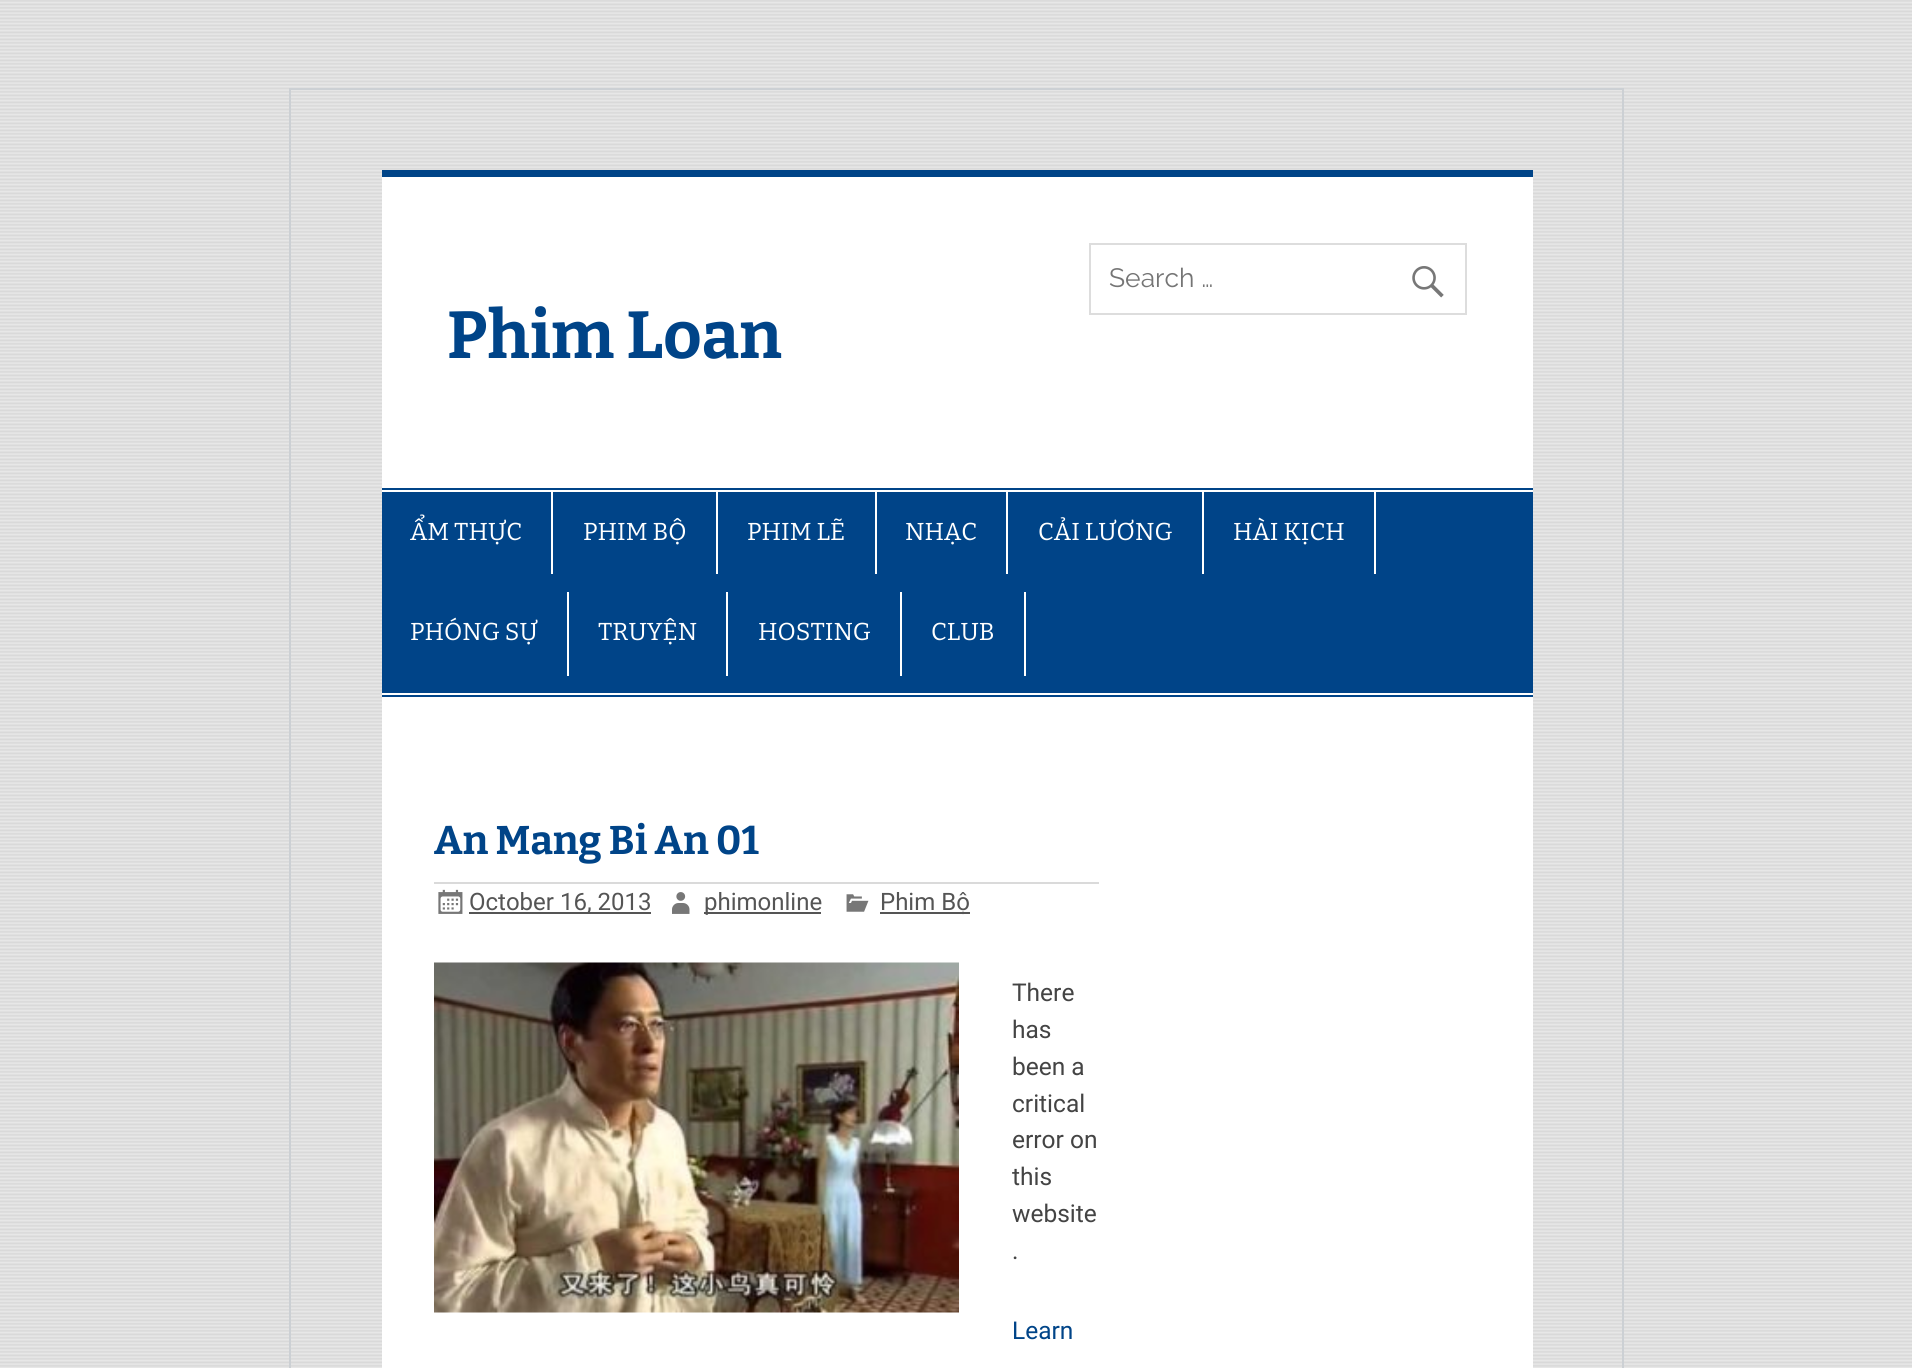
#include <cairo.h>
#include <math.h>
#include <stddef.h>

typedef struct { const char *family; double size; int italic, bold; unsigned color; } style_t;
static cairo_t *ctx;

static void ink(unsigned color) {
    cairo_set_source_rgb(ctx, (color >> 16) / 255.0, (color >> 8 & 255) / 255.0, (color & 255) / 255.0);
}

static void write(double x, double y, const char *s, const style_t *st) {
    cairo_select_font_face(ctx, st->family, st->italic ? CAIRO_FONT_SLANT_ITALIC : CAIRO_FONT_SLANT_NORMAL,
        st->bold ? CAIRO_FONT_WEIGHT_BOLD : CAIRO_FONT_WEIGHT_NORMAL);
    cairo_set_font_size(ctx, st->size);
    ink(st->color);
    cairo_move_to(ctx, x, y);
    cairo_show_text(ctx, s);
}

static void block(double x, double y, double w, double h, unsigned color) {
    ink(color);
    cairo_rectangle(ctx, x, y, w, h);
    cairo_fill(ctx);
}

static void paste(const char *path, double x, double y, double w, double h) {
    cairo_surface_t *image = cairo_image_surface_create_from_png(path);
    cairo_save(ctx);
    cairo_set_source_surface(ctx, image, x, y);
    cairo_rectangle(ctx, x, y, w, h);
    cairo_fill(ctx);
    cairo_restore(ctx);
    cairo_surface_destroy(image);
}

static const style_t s1 = {"Raleway", 26.5, 0, 0, 0x757575};
static const style_t s2 = {"Bitter", 66.5, 0, 1, 0x004488};
static const style_t s3 = {"Bitter", 24.5, 0, 0, 0xffffff};
static const style_t s4 = {"Bitter", 40, 0, 1, 0x004488};
static const style_t s5 = {"Roboto", 24, 0, 0, 0x555555};
static const style_t s6 = {"Roboto", 24.5, 0, 0, 0x444444};
static const style_t s7 = {"Roboto", 24.5, 0, 0, 0x004488};

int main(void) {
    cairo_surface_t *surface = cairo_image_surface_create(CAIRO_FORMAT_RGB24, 1912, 1368);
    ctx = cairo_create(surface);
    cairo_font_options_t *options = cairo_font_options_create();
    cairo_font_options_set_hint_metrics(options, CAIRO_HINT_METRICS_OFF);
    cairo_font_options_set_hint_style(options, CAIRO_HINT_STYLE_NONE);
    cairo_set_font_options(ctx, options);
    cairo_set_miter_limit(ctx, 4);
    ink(0xffffff);
    cairo_paint(ctx);
    paste("pic1.png", 0, 0, 1912, 1368);
    cairo_rectangle(ctx, 290, 89, 1333, 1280);
    ink(0xccd0d4);
    cairo_stroke(ctx);
    block(382, 177, 1151, 1191, 0xffffff);
    block(382, 170, 1151, 7, 0x004488);
    cairo_rectangle(ctx, 1090, 244, 376, 70);
    ink(0xdddddd);
    cairo_stroke(ctx);
    write(1109, 287, "Search …", &s1);
    paste("pic2.png", 1412, 266, 32, 32);
    write(447, 358, "Phim Loan", &s2);
    block(382, 488, 1151, 2, 0x004488);
    block(382, 695, 1151, 2, 0x004488);
    block(382, 492, 1151, 201, 0x004488);
    block(551, 492, 2, 82, 0xffffff);
    write(410, 540, "ẨM THỰC", &s3);
    block(716, 492, 2, 82, 0xffffff);
    write(583, 540, "PHIM BỘ", &s3);
    block(875, 492, 2, 82, 0xffffff);
    write(747, 540, "PHIM LẼ", &s3);
    block(1006, 492, 2, 82, 0xffffff);
    write(905, 540, "NHẠC", &s3);
    block(1202, 492, 2, 82, 0xffffff);
    write(1038, 540, "CẢI LƯƠNG", &s3);
    block(1374, 492, 2, 82, 0xffffff);
    write(1233, 540, "HÀI KỊCH", &s3);
    block(567, 592, 2, 84, 0xffffff);
    write(410, 640, "PHÓNG SỰ", &s3);
    block(726, 592, 2, 84, 0xffffff);
    write(598, 640, "TRUYỆN", &s3);
    block(900, 592, 2, 84, 0xffffff);
    write(758, 640, "HOSTING", &s3);
    block(1024, 592, 2, 84, 0xffffff);
    write(931, 640, "CLUB", &s3);
    block(434, 882, 665, 2, 0xdadada);
    write(434, 854, "An Mang Bi An 01", &s4);
    paste("pic3.png", 438, 889, 25, 25);
    block(469, 912, 182, 2, 0x555555);
    write(469, 910, "October 16, 2013", &s5);
    paste("pic4.png", 672, 892, 18, 22);
    block(704, 912, 117, 2, 0x555555);
    write(704, 910, "phimonline", &s5);
    paste("pic5.png", 846, 894, 23, 18);
    block(880, 912, 90, 2, 0x555555);
    write(880, 910, "Phim Bộ", &s5);
    paste("pic6.png", 434, 962, 525, 351);
    write(1012, 1001, "There", &s6);
    write(1012, 1038, "has", &s6);
    write(1012, 1075, "been a", &s6);
    write(1012, 1112, "critical", &s6);
    write(1012, 1148, "error on", &s6);
    write(1012, 1185, "this", &s6);
    write(1012, 1222, "website", &s6);
    write(1012, 1259, ".", &s6);
    write(1012, 1339, "Learn", &s7);
    cairo_surface_write_to_png(surface, "screenshot.png");
    cairo_font_options_destroy(options);
    cairo_destroy(ctx);
    cairo_surface_destroy(surface);
    return 0;
}
